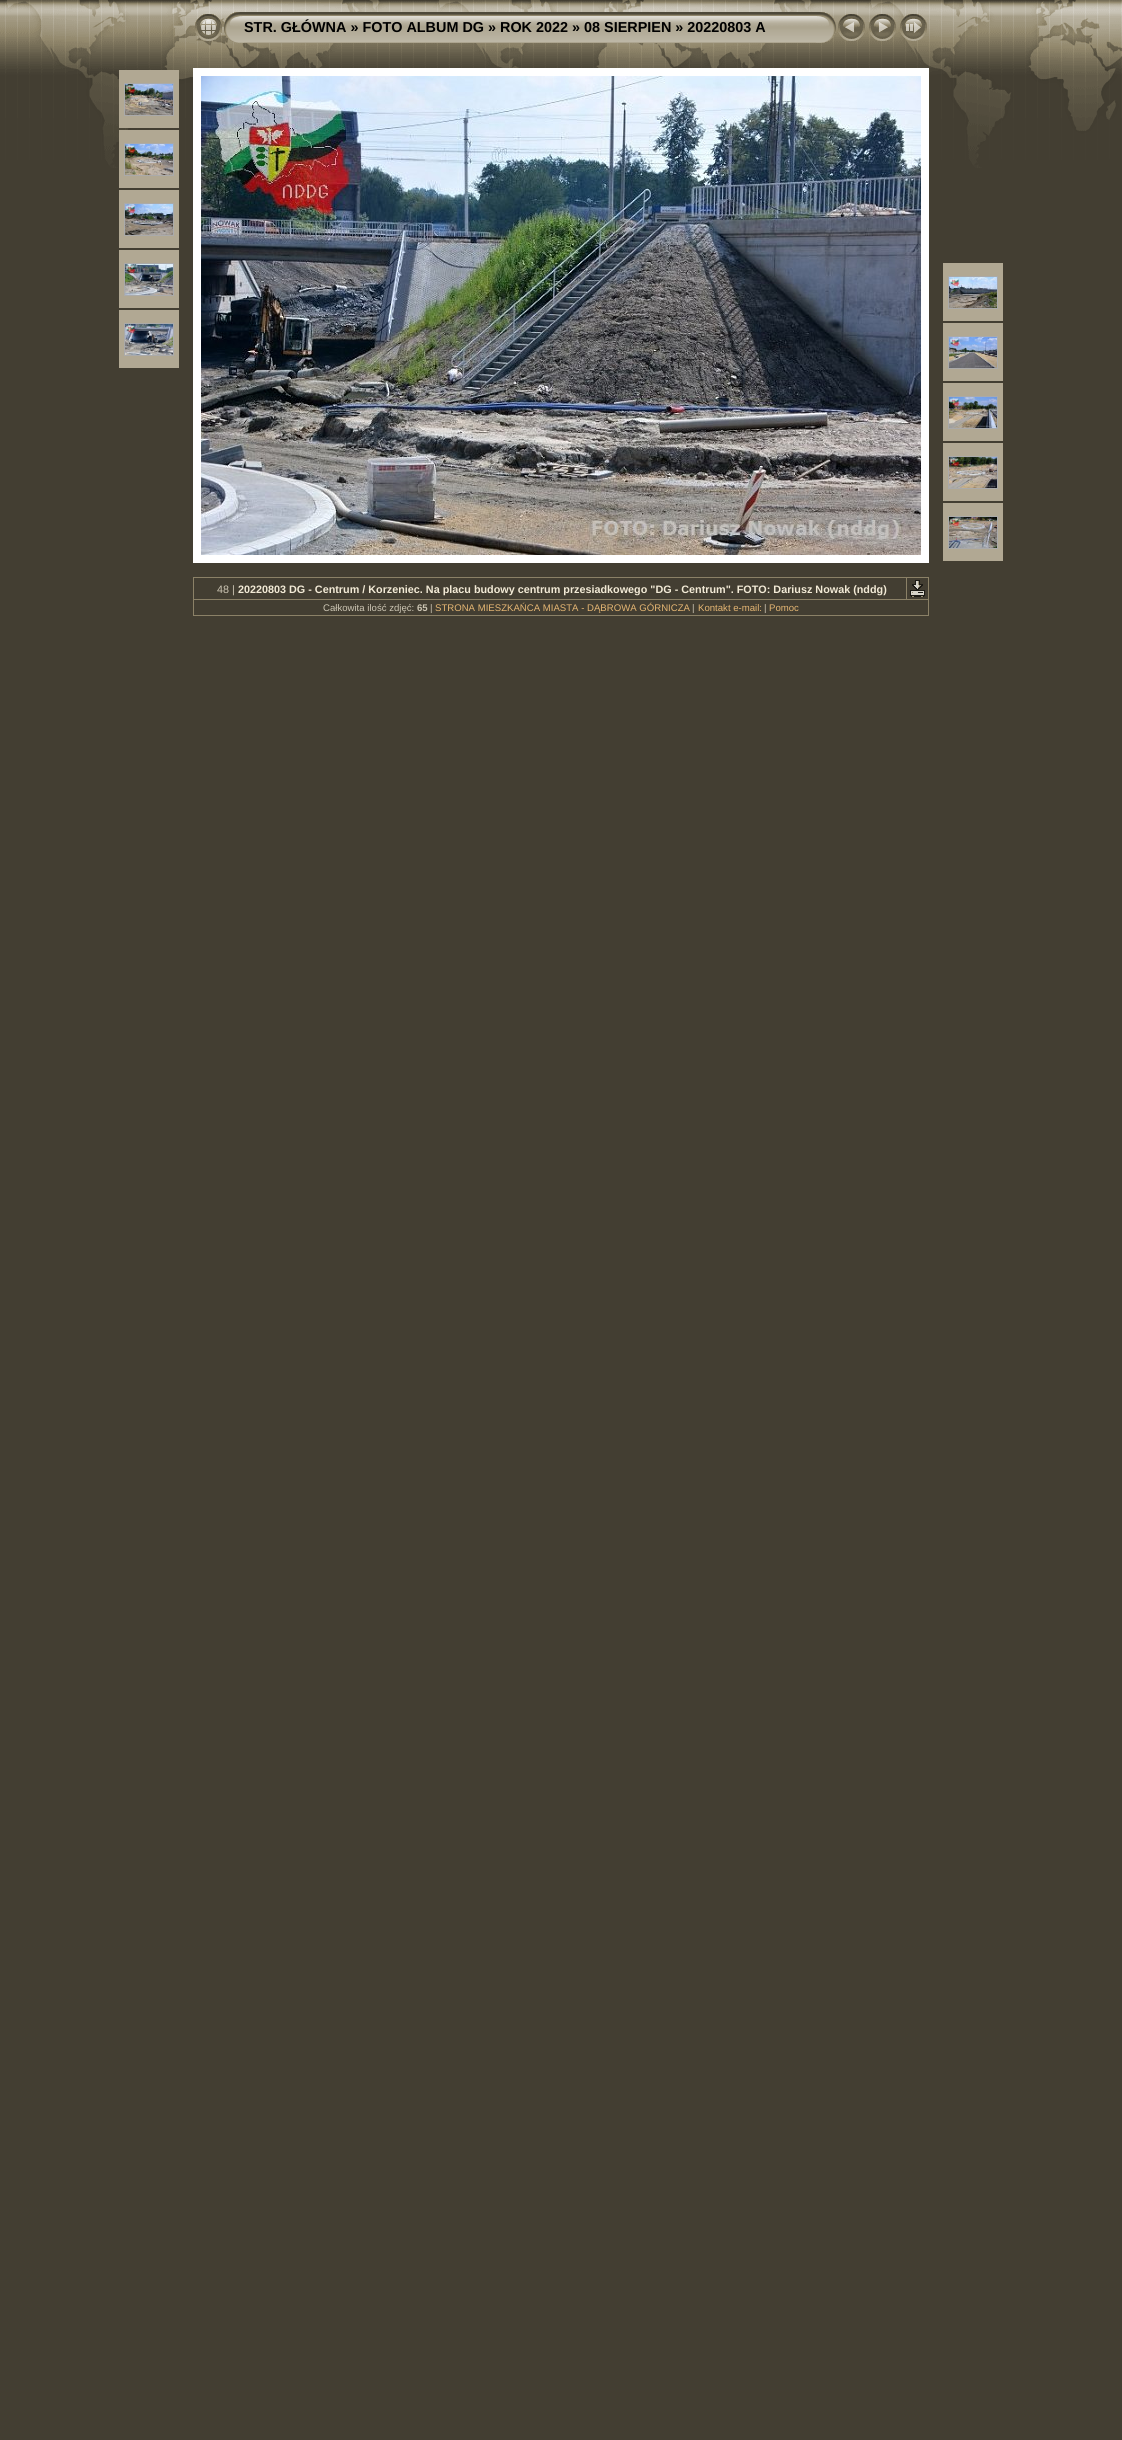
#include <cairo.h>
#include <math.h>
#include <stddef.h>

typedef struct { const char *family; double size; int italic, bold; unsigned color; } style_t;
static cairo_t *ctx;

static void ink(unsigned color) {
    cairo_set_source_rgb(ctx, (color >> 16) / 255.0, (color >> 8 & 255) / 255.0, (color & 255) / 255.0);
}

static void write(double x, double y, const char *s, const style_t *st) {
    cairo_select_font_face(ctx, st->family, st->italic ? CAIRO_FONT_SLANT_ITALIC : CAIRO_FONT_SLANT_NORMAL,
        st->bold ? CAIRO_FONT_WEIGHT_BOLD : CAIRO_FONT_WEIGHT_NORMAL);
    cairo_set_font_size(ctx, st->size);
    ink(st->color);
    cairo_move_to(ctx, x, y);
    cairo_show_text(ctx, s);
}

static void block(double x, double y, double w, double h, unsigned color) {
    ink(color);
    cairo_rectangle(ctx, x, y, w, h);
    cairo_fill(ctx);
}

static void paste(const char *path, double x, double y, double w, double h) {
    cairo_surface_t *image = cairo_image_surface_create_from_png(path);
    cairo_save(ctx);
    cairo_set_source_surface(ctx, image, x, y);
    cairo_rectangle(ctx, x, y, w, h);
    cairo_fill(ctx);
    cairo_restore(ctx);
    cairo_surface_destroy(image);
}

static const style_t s1 = {"Liberation Sans", 14.4, 0, 1, 0x000000};
static const style_t s2 = {"Liberation Sans", 10.8, 0, 0, 0xcdc6b4};
static const style_t s3 = {"Liberation Sans", 10.8, 0, 1, 0xf2ead6};
static const style_t s4 = {"Liberation Sans", 9.6, 0, 0, 0xcdc6b4};
static const style_t s5 = {"Liberation Sans", 9.6, 0, 1, 0xcdc6b4};
static const style_t s6 = {"Liberation Sans", 9.6, 0, 0, 0xe5b673};

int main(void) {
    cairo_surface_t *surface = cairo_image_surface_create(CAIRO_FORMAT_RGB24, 1122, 2440);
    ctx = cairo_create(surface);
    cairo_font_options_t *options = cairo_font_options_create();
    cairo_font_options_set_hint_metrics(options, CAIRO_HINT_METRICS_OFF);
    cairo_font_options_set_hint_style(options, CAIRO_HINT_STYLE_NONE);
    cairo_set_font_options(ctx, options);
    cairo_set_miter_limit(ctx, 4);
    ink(0x433e32);
    cairo_paint(ctx);
    paste("pic1.png", 0, 0, 1122, 168);
    paste("pic2.png", 195, 14, 27, 27);
    paste("pic3.png", 224, 12, 20, 31);
    paste("pic4.png", 244, 12, 572, 31);
    write(244, 32, "STR. GŁÓWNA » FOTO ALBUM DG » ROK 2022 » 08 SIERPIEN » 20220803 A", &s1);
    paste("pic5.png", 816, 12, 20, 31);
    paste("pic6.png", 838, 14, 27, 27);
    paste("pic7.png", 869, 14, 27, 27);
    paste("pic8.png", 900, 14, 27, 27);
    block(119, 70, 60, 58, 0xb1a893);
    cairo_rectangle(ctx, 124.5, 83.5, 49, 32);
    ink(0xaaaaaa);
    cairo_set_line_width(ctx, 1);
    cairo_stroke(ctx);
    paste("pic9.png", 125, 84, 48, 31);
    block(119, 130, 60, 58, 0xb1a893);
    cairo_rectangle(ctx, 124.5, 143.5, 49, 32);
    ink(0xaaaaaa);
    cairo_stroke(ctx);
    paste("pic10.png", 125, 144, 48, 31);
    block(119, 190, 60, 58, 0xb1a893);
    cairo_rectangle(ctx, 124.5, 203.5, 49, 32);
    ink(0xaaaaaa);
    cairo_stroke(ctx);
    paste("pic11.png", 125, 204, 48, 31);
    block(119, 250, 60, 58, 0xb1a893);
    cairo_rectangle(ctx, 124.5, 263.5, 49, 32);
    ink(0xaaaaaa);
    cairo_stroke(ctx);
    paste("pic12.png", 125, 264, 48, 31);
    block(119, 310, 60, 58, 0xb1a893);
    cairo_rectangle(ctx, 124.5, 323.5, 49, 32);
    ink(0xaaaaaa);
    cairo_stroke(ctx);
    paste("pic13.png", 125, 324, 48, 31);
    cairo_rectangle(ctx, 197, 72, 728, 487);
    ink(0xffffff);
    cairo_set_line_width(ctx, 8);
    cairo_stroke(ctx);
    paste("pic14.png", 201, 76, 720, 479);
    block(943, 263, 60, 58, 0xb1a893);
    cairo_rectangle(ctx, 948.5, 276.5, 49, 32);
    ink(0xaaaaaa);
    cairo_set_line_width(ctx, 1);
    cairo_stroke(ctx);
    paste("pic15.png", 949, 277, 48, 31);
    block(943, 323, 60, 58, 0xb1a893);
    cairo_rectangle(ctx, 948.5, 336.5, 49, 32);
    ink(0xaaaaaa);
    cairo_stroke(ctx);
    paste("pic16.png", 949, 337, 48, 31);
    block(943, 383, 60, 58, 0xb1a893);
    cairo_rectangle(ctx, 948.5, 396.5, 49, 32);
    ink(0xaaaaaa);
    cairo_stroke(ctx);
    paste("pic17.png", 949, 397, 48, 31);
    block(943, 443, 60, 58, 0xb1a893);
    cairo_rectangle(ctx, 948.5, 456.5, 49, 32);
    ink(0xaaaaaa);
    cairo_stroke(ctx);
    paste("pic18.png", 949, 457, 48, 31);
    block(943, 503, 60, 58, 0xb1a893);
    cairo_rectangle(ctx, 948.5, 516.5, 49, 32);
    ink(0xaaaaaa);
    cairo_stroke(ctx);
    paste("pic19.png", 949, 517, 48, 31);
    block(906, 577, 23, 1, 0x8b8167);
    block(193, 599, 736, 1, 0x8b8167);
    block(906, 577, 1, 23, 0x8b8167);
    block(193, 577, 714, 1, 0x8b8167);
    block(928, 599, 1, 17, 0x8b8167);
    block(193, 615, 736, 1, 0x8b8167);
    block(193, 599, 1, 17, 0x8b8167);
    block(193, 577, 1, 23, 0x8b8167);
    write(217, 593, "48 |", &s2);
    write(238, 593, "20220803 DG - Centrum / Korzeniec. Na placu budowy centrum przesiadkowego \"DG - Centrum\". FOTO: Dariusz Nowak (nddg)", &s3);
    block(928, 577, 1, 23, 0x8b8167);
    paste("pic20.png", 910, 580, 15, 17);
    write(323, 611, "Całkowita ilość zdjęć:", &s4);
    write(417, 611, "65", &s5);
    write(430, 611, "|", &s4);
    write(435, 611, "STRONA MIESZKAŃCA MIASTA - DĄBROWA GÓRNICZA", &s6);
    write(692, 611, "|", &s4);
    write(698, 611, "Kontakt e-mail:", &s6);
    write(764, 611, "|", &s4);
    write(769, 611, "Pomoc", &s6);
    cairo_surface_write_to_png(surface, "screenshot.png");
    cairo_font_options_destroy(options);
    cairo_destroy(ctx);
    cairo_surface_destroy(surface);
    return 0;
}
